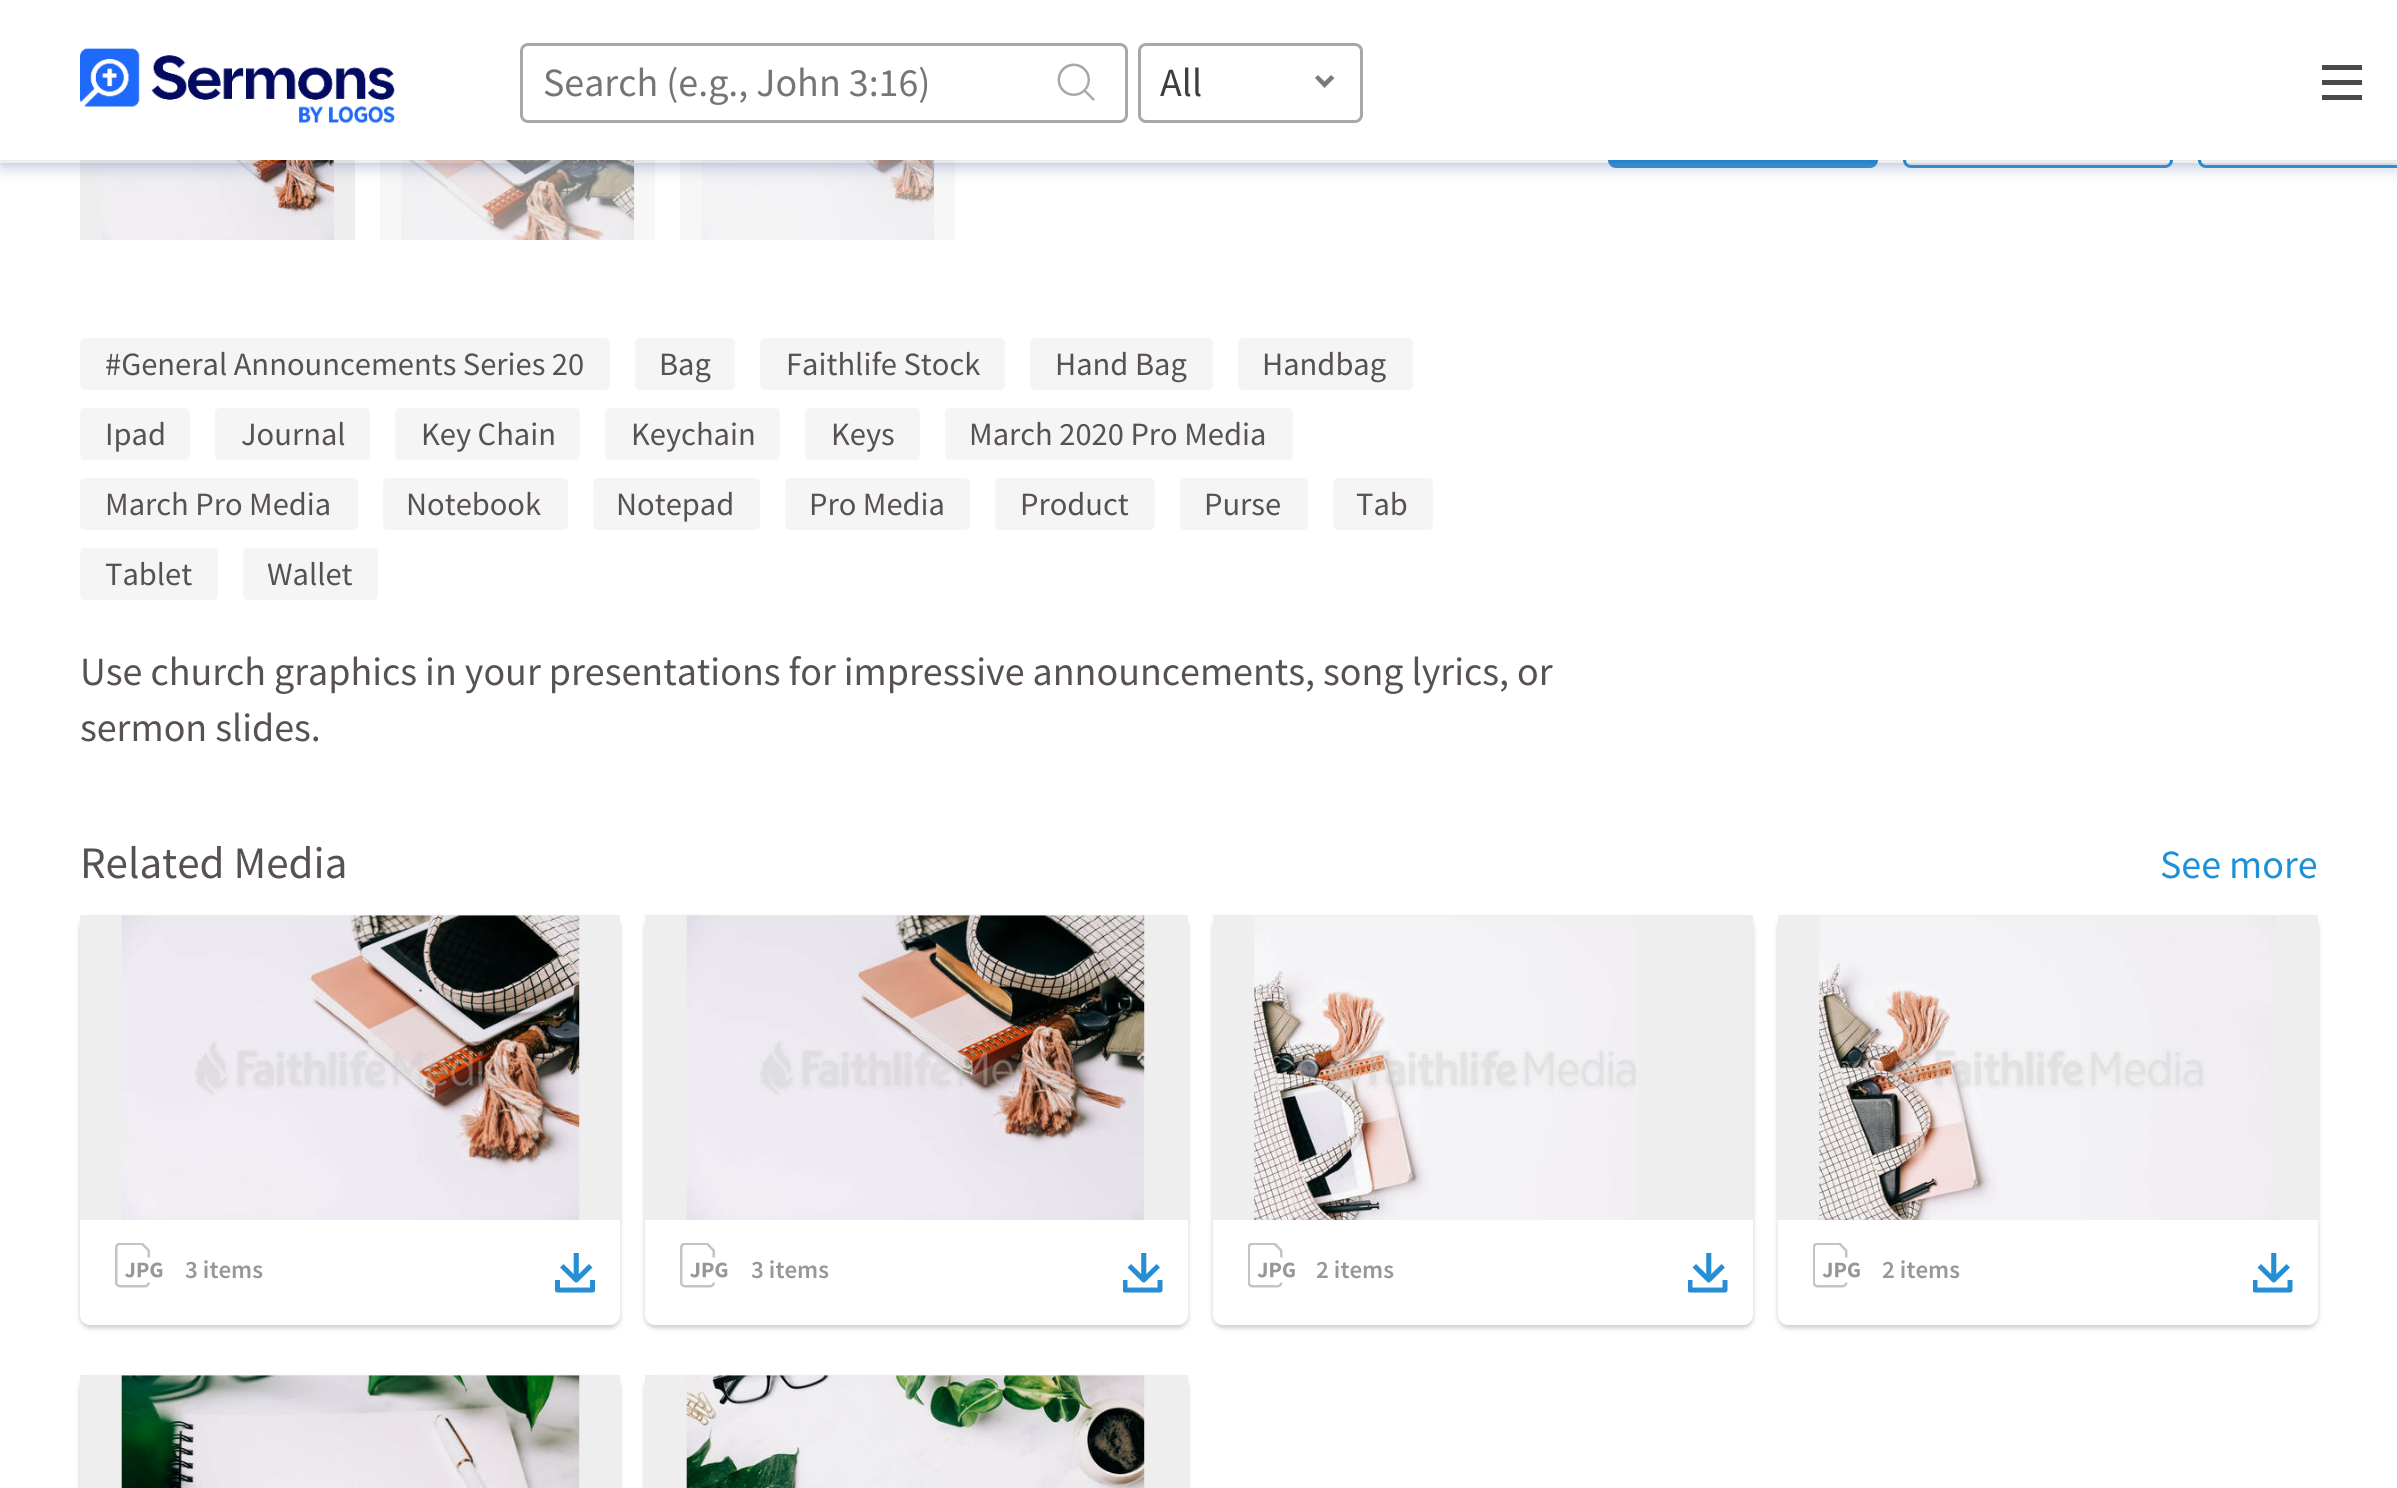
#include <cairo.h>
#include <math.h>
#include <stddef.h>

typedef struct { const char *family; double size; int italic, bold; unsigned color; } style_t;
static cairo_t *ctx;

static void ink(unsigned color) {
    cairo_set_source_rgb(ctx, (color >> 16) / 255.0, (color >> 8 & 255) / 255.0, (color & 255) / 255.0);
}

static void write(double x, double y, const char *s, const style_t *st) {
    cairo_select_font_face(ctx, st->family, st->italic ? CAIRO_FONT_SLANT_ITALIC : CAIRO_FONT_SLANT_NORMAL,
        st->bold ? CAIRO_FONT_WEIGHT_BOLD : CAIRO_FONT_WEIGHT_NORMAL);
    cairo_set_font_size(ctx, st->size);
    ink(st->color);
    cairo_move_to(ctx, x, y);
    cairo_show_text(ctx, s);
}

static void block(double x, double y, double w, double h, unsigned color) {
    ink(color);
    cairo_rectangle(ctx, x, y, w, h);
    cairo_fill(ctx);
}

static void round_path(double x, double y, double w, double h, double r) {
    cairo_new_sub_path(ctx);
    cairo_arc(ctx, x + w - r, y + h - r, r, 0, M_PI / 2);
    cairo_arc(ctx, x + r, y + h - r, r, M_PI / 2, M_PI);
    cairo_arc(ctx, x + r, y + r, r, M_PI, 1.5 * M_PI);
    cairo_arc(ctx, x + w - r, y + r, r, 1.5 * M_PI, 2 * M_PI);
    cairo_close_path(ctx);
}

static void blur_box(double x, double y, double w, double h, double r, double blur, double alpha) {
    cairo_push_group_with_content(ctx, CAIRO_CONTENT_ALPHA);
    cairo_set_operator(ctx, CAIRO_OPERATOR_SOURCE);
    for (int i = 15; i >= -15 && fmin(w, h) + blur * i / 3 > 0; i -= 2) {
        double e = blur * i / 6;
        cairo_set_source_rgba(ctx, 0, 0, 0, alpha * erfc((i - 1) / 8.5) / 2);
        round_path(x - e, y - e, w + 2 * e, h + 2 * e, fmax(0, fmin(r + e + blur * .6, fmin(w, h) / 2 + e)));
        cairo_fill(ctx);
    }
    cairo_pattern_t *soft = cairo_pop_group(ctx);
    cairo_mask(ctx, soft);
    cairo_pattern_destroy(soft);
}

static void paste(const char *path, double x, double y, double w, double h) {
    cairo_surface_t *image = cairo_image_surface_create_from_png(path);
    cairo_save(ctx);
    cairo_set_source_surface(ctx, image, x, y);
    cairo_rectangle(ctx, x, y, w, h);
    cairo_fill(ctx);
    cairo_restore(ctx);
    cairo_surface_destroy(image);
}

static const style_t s1 = {"Source Sans Pro", 40, 0, 0, 0x757575};
static const style_t s2 = {"Source Sans Pro", 40, 0, 0, 0x3d3d3d};
static const style_t s3 = {"Source Sans Pro", 32.5, 0, 0, 0x575251};
static const style_t s4 = {"Source Sans Pro", 40, 0, 0, 0x575251};
static const style_t s5 = {"Source Sans Pro", 45, 0, 0, 0x575251};
static const style_t s6 = {"Source Sans Pro", 40, 0, 0, 0x1e91d6};
static const style_t s7 = {"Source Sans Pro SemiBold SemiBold", 25, 0, 0, 0x979797};

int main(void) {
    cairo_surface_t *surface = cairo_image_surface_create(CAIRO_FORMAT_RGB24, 2397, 1488);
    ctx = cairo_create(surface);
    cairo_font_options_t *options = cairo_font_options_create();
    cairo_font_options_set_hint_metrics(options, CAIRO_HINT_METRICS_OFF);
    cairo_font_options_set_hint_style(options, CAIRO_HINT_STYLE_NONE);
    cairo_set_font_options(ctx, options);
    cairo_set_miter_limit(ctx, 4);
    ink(0xffffff);
    cairo_paint(ctx);
    ink(0x278ed4);
    round_path(1609.5, 94.5, 267, 72, 6.5);
    cairo_fill_preserve(ctx);
    cairo_set_line_width(ctx, 3);
    cairo_stroke(ctx);
    round_path(1904.5, 94.5, 267, 72, 6.5);
    cairo_stroke(ctx);
    round_path(2199.5, 94.5, 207, 72, 6.5);
    cairo_stroke(ctx);
    block(80, 160, 275, 80, 0xeeeeee);
    paste("pic3.png", 101, 160, 234, 80);
    block(380, 160, 275, 80, 0xf7f7f7);
    paste("pic4.png", 401, 160, 234, 80);
    block(680, 160, 275, 80, 0xf7f7f7);
    paste("pic5.png", 701, 160, 234, 80);
    ink(0x000000);
    blur_box(0, 3, 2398, 160, 0, 2.5, 0.1);
    block(0, 0, 2397, 160, 0xffffff);
    cairo_save(ctx);
    cairo_set_fill_rule(ctx, CAIRO_FILL_RULE_EVEN_ODD);
    cairo_new_path(ctx);
    cairo_move_to(ctx, 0, 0);
    cairo_line_to(ctx, 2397, 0);
    cairo_line_to(ctx, 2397, 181);
    cairo_line_to(ctx, 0, 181);
    cairo_close_path(ctx);
    cairo_move_to(ctx, 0, 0);
    cairo_line_to(ctx, 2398, 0);
    cairo_line_to(ctx, 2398, 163);
    cairo_line_to(ctx, 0, 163);
    cairo_close_path(ctx);
    cairo_clip(ctx);
    ink(0x6e83b7);
    blur_box(3, 8, 2392, 157, 0, 5, 0.2);
    cairo_restore(ctx);
    cairo_save(ctx);
    cairo_set_fill_rule(ctx, CAIRO_FILL_RULE_EVEN_ODD);
    cairo_new_path(ctx);
    cairo_move_to(ctx, 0, 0);
    cairo_line_to(ctx, 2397, 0);
    cairo_line_to(ctx, 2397, 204);
    cairo_line_to(ctx, 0, 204);
    cairo_close_path(ctx);
    cairo_move_to(ctx, 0, 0);
    cairo_line_to(ctx, 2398, 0);
    cairo_line_to(ctx, 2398, 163);
    cairo_line_to(ctx, 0, 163);
    cairo_close_path(ctx);
    cairo_clip(ctx);
    ink(0x6e83b7);
    blur_box(0, 3, 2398, 162, 0, 12.5, 0.12);
    cairo_restore(ctx);
    cairo_save(ctx);
    cairo_set_fill_rule(ctx, CAIRO_FILL_RULE_EVEN_ODD);
    cairo_new_path(ctx);
    cairo_move_to(ctx, 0, 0);
    cairo_line_to(ctx, 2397, 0);
    cairo_line_to(ctx, 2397, 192);
    cairo_line_to(ctx, 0, 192);
    cairo_close_path(ctx);
    cairo_move_to(ctx, 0, 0);
    cairo_line_to(ctx, 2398, 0);
    cairo_line_to(ctx, 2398, 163);
    cairo_line_to(ctx, 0, 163);
    cairo_close_path(ctx);
    cairo_clip(ctx);
    ink(0x6e83b7);
    blur_box(0, 10, 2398, 163, 0, 6, 0.14);
    cairo_restore(ctx);
    paste("pic1.png", 80, 48, 315, 76);
    round_path(521.5, 44.5, 605, 77, 6.5);
    ink(0xa8a8a8);
    cairo_stroke(ctx);
    write(543, 96, "Search (e.g., John 3:16)", &s1);
    paste("pic2.png", 1057, 63, 38, 38);
    round_path(1139.5, 44.5, 222, 77, 6.5);
    ink(0xa8a8a8);
    cairo_stroke(ctx);
    write(1160, 96, "All", &s2);
    ink(0x7a7a7a);
    cairo_set_fill_rule(ctx, CAIRO_FILL_RULE_EVEN_ODD);
    cairo_new_path(ctx);
    cairo_move_to(ctx, 1318, 75);
    cairo_line_to(ctx, 1324.5, 81.5);
    cairo_line_to(ctx, 1331, 75);
    cairo_line_to(ctx, 1334.5, 78);
    cairo_line_to(ctx, 1324.5, 88);
    cairo_line_to(ctx, 1315, 78);
    cairo_close_path(ctx);
    cairo_fill(ctx);
    ink(0x4a4a4a);
    cairo_new_path(ctx);
    cairo_move_to(ctx, 2322, 65);
    cairo_line_to(ctx, 2362, 65);
    cairo_line_to(ctx, 2362, 70);
    cairo_line_to(ctx, 2322, 70);
    cairo_close_path(ctx);
    cairo_move_to(ctx, 2322, 95);
    cairo_line_to(ctx, 2362, 95);
    cairo_line_to(ctx, 2362, 100);
    cairo_line_to(ctx, 2322, 100);
    cairo_close_path(ctx);
    cairo_move_to(ctx, 2322, 80);
    cairo_line_to(ctx, 2362, 80);
    cairo_line_to(ctx, 2362, 85);
    cairo_line_to(ctx, 2322, 85);
    cairo_close_path(ctx);
    cairo_fill(ctx);
    ink(0xf5f5f5);
    round_path(80, 338, 530, 52, 5);
    cairo_fill(ctx);
    write(105, 375, "#General Announcements Series 20", &s3);
    ink(0xf5f5f5);
    round_path(635, 338, 100, 52, 5);
    cairo_fill(ctx);
    write(659, 375, "Bag", &s3);
    ink(0xf5f5f5);
    round_path(760, 338, 245, 52, 5);
    cairo_fill(ctx);
    write(786, 375, "Faithlife Stock", &s3);
    ink(0xf5f5f5);
    round_path(1030, 338, 183, 52, 5);
    cairo_fill(ctx);
    write(1055, 375, "Hand Bag", &s3);
    ink(0xf5f5f5);
    round_path(1238, 338, 175, 52, 5);
    cairo_fill(ctx);
    write(1262, 375, "Handbag", &s3);
    ink(0xf5f5f5);
    round_path(80, 408, 110, 52, 5);
    cairo_fill(ctx);
    write(105, 445, "Ipad", &s3);
    ink(0xf5f5f5);
    round_path(215, 408, 155, 52, 5);
    cairo_fill(ctx);
    write(241, 445, "Journal", &s3);
    ink(0xf5f5f5);
    round_path(395, 408, 185, 52, 5);
    cairo_fill(ctx);
    write(421, 445, "Key Chain", &s3);
    ink(0xf5f5f5);
    round_path(605, 408, 175, 52, 5);
    cairo_fill(ctx);
    write(631, 445, "Keychain", &s3);
    ink(0xf5f5f5);
    round_path(805, 408, 115, 52, 5);
    cairo_fill(ctx);
    write(831, 445, "Keys", &s3);
    ink(0xf5f5f5);
    round_path(945, 408, 348, 52, 5);
    cairo_fill(ctx);
    write(969, 445, "March 2020 Pro Media", &s3);
    ink(0xf5f5f5);
    round_path(80, 478, 278, 52, 5);
    cairo_fill(ctx);
    write(105, 515, "March Pro Media", &s3);
    ink(0xf5f5f5);
    round_path(383, 478, 185, 52, 5);
    cairo_fill(ctx);
    write(406, 515, "Notebook", &s3);
    ink(0xf5f5f5);
    round_path(593, 478, 167, 52, 5);
    cairo_fill(ctx);
    write(616, 515, "Notepad", &s3);
    ink(0xf5f5f5);
    round_path(785, 478, 185, 52, 5);
    cairo_fill(ctx);
    write(809, 515, "Pro Media", &s3);
    ink(0xf5f5f5);
    round_path(995, 478, 160, 52, 5);
    cairo_fill(ctx);
    write(1020, 515, "Product", &s3);
    ink(0xf5f5f5);
    round_path(1180, 478, 128, 52, 5);
    cairo_fill(ctx);
    write(1204, 515, "Purse", &s3);
    ink(0xf5f5f5);
    round_path(1333, 478, 100, 52, 5);
    cairo_fill(ctx);
    write(1356, 515, "Tab", &s3);
    ink(0xf5f5f5);
    round_path(80, 548, 138, 52, 5);
    cairo_fill(ctx);
    write(105, 585, "Tablet", &s3);
    ink(0xf5f5f5);
    round_path(243, 548, 135, 52, 5);
    cairo_fill(ctx);
    write(267, 585, "Wallet", &s3);
    write(80, 685, "Use church graphics in your presentations for impressive announcements, song lyrics, or", &s4);
    write(80, 741, "sermon slides.", &s4);
    write(80, 878, "Related Media", &s5);
    write(2160, 878, "See more", &s6);
    ink(0x000000);
    blur_box(80, 918, 540, 410, 10, 2.5, 0.2);
    ink(0xffffff);
    cairo_new_path(ctx);
    cairo_move_to(ctx, 80, 915);
    cairo_line_to(ctx, 620, 915);
    cairo_line_to(ctx, 620, 1315);
    cairo_curve_to(ctx, 620, 1320.5, 615.5, 1325, 610, 1325);
    cairo_line_to(ctx, 90, 1325);
    cairo_curve_to(ctx, 84.5, 1325, 80, 1320.5, 80, 1315);
    cairo_close_path(ctx);
    cairo_fill(ctx);
    block(80, 915, 540, 305, 0xeeeeee);
    paste("pic6.png", 121, 915, 459, 305);
    paste("pic7.png", 115, 1243, 48, 45);
    write(185, 1278, "3 items", &s7);
    paste("pic8.png", 555, 1253, 40, 40);
    ink(0x000000);
    blur_box(645, 918, 543, 410, 10, 2.5, 0.2);
    ink(0xffffff);
    cairo_new_path(ctx);
    cairo_move_to(ctx, 645, 915);
    cairo_line_to(ctx, 1188, 915);
    cairo_line_to(ctx, 1188, 1315);
    cairo_curve_to(ctx, 1188, 1320.5, 1183.5, 1325, 1178, 1325);
    cairo_line_to(ctx, 655, 1325);
    cairo_curve_to(ctx, 649.5, 1325, 645, 1320.5, 645, 1315);
    cairo_close_path(ctx);
    cairo_fill(ctx);
    block(645, 915, 543, 305, 0xeeeeee);
    paste("pic9.png", 686, 915, 459, 305);
    paste("pic7.png", 680, 1243, 48, 45);
    write(751, 1278, "3 items", &s7);
    paste("pic10.png", 1123, 1253, 40, 40);
    ink(0x000000);
    blur_box(1213, 918, 540, 410, 10, 2.5, 0.2);
    ink(0xffffff);
    cairo_new_path(ctx);
    cairo_move_to(ctx, 1213, 915);
    cairo_line_to(ctx, 1753, 915);
    cairo_line_to(ctx, 1753, 1315);
    cairo_curve_to(ctx, 1753, 1320.5, 1748.5, 1325, 1743, 1325);
    cairo_line_to(ctx, 1223, 1325);
    cairo_curve_to(ctx, 1217.5, 1325, 1213, 1320.5, 1213, 1315);
    cairo_close_path(ctx);
    cairo_fill(ctx);
    block(1213, 915, 540, 305, 0xeeeeee);
    paste("pic11.png", 1254, 916, 384, 304);
    paste("pic12.png", 1248, 1243, 47, 45);
    write(1316, 1278, "2 items", &s7);
    paste("pic10.png", 1688, 1253, 40, 40);
    ink(0x000000);
    blur_box(1778, 918, 540, 410, 10, 2.5, 0.2);
    ink(0xffffff);
    cairo_new_path(ctx);
    cairo_move_to(ctx, 1778, 915);
    cairo_line_to(ctx, 2318, 915);
    cairo_line_to(ctx, 2318, 1315);
    cairo_curve_to(ctx, 2318, 1320.5, 2313.5, 1325, 2308, 1325);
    cairo_line_to(ctx, 1788, 1325);
    cairo_curve_to(ctx, 1782.5, 1325, 1778, 1320.5, 1778, 1315);
    cairo_close_path(ctx);
    cairo_fill(ctx);
    block(1778, 915, 540, 305, 0xeeeeee);
    paste("pic13.png", 1819, 916, 458, 304);
    paste("pic12.png", 1813, 1243, 47, 45);
    write(1882, 1278, "2 items", &s7);
    paste("pic10.png", 2253, 1253, 40, 40);
    ink(0x000000);
    blur_box(80, 1378, 540, 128, 10, 2.5, 0.2);
    block(80, 1375, 540, 113, 0xeeeeee);
    paste("pic14.png", 121, 1375, 459, 113);
    ink(0x000000);
    blur_box(645, 1378, 543, 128, 10, 2.5, 0.2);
    block(645, 1375, 543, 113, 0xeeeeee);
    paste("pic15.png", 686, 1375, 459, 113);
    cairo_surface_write_to_png(surface, "screenshot.png");
    cairo_font_options_destroy(options);
    cairo_destroy(ctx);
    cairo_surface_destroy(surface);
    return 0;
}
